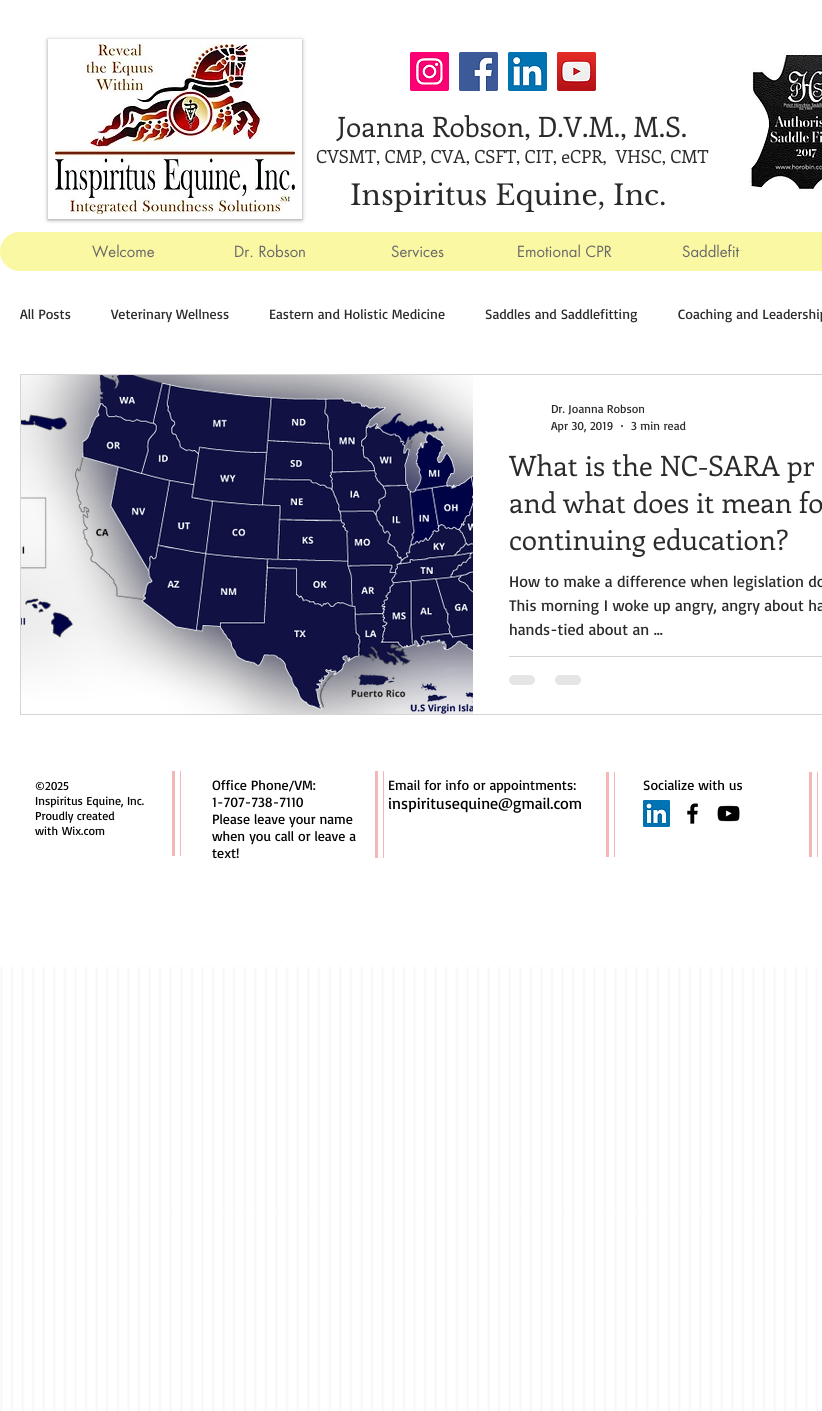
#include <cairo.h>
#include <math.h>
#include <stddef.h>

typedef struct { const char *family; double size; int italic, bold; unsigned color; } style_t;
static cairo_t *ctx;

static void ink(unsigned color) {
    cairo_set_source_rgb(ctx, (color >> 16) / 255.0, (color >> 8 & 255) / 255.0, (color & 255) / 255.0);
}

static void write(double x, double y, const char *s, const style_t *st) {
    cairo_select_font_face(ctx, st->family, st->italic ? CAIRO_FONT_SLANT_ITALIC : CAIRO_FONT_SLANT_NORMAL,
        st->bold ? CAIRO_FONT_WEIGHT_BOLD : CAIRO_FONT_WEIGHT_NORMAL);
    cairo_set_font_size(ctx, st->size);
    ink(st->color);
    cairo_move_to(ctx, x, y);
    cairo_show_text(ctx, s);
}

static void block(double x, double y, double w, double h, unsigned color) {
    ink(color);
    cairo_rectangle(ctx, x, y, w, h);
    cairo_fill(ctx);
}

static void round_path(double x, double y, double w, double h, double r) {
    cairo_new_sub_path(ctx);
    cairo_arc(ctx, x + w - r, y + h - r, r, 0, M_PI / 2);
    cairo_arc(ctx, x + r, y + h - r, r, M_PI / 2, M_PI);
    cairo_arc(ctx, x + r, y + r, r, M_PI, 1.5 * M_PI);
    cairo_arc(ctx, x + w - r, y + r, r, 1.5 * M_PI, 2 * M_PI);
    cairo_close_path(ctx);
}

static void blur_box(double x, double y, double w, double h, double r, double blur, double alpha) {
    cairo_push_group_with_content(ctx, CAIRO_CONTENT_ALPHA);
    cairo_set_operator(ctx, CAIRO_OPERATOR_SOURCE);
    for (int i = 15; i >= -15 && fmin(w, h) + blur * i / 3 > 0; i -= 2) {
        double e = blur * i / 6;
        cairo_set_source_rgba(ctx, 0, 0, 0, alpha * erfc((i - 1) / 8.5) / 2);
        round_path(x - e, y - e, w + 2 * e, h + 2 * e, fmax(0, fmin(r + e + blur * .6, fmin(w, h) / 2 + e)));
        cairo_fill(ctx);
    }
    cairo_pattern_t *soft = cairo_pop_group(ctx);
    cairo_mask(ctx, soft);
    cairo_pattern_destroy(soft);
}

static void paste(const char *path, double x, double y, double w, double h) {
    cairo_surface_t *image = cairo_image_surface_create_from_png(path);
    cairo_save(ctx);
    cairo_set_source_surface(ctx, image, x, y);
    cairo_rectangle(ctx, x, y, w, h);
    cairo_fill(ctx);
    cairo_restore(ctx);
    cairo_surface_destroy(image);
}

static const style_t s1 = {"Enriqueta", 28, 0, 0, 0x2a2a2a};
static const style_t s2 = {"Enriqueta", 18, 0, 0, 0x2a2a2a};
static const style_t s3 = {"Libre Baskerville", 28, 0, 0, 0x2a2a2a};
static const style_t s4 = {"futura", 15, 0, 0, 0x696969};
static const style_t s5 = {"Basic", 14, 0, 0, 0x2a2a2a};
static const style_t s6 = {"Basic", 12, 0, 0, 0x2a2a2a};
static const style_t s7 = {"Basic", 16, 0, 0, 0x2a2a2a};
static const style_t s8 = {"Basic", 12, 0, 0, 0x000000};
static const style_t s9 = {"Basic", 14, 0, 0, 0x000000};
static const style_t s10 = {"Basic", 16, 0, 0, 0x000000};

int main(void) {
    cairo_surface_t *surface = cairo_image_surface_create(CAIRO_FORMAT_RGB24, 822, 1411);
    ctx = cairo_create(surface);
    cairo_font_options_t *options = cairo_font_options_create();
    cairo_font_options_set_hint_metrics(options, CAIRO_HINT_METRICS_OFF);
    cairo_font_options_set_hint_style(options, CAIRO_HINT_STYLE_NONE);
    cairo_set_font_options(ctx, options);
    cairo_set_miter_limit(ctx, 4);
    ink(0xffffff);
    cairo_paint(ctx);
    cairo_save(ctx);
    cairo_set_fill_rule(ctx, CAIRO_FILL_RULE_EVEN_ODD);
    cairo_new_path(ctx);
    cairo_move_to(ctx, 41, 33);
    cairo_line_to(ctx, 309, 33);
    cairo_line_to(ctx, 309, 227);
    cairo_line_to(ctx, 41, 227);
    cairo_close_path(ctx);
    cairo_move_to(ctx, 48, 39);
    cairo_line_to(ctx, 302, 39);
    cairo_line_to(ctx, 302, 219);
    cairo_line_to(ctx, 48, 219);
    cairo_close_path(ctx);
    cairo_clip(ctx);
    ink(0x000000);
    blur_box(48, 40, 254, 180, 0, 2, 0.4);
    cairo_restore(ctx);
    paste("pic1.png", 55, 44, 240, 170);
    paste("pic2.png", 410, 52, 39, 39);
    paste("pic3.png", 459, 52, 39, 39);
    paste("pic4.png", 508, 52, 39, 39);
    paste("pic5.png", 557, 52, 39, 39);
    paste("pic6.png", 748, 52, 74, 140);
    write(337, 137, "Joanna Robson, D.V.M., M.S.", &s1);
    write(316, 163, "CVSMT, CMP, CVA, CSFT, CIT, eCPR,  VHSC, CMT", &s2);
    write(350, 205, "Inspiritus Equine, Inc.", &s3);
    ink(0xfbf8a4);
    round_path(0, 232, 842, 39, 19.5);
    cairo_fill(ctx);
    write(92, 257, "Welcome", &s4);
    write(234, 257, "Dr. Robson", &s4);
    write(391, 257, "Services", &s4);
    write(517, 257, "Emotional CPR", &s4);
    write(682, 257, "Saddlefit", &s4);
    write(20, 319, "All Posts", &s5);
    write(111, 319, "Veterinary Wellness", &s5);
    write(269, 319, "Eastern and Holistic Medicine", &s5);
    write(485, 319, "Saddles and Saddlefitting", &s5);
    write(678, 319, "Coaching and Leadership", &s5);
    cairo_rectangle(ctx, 20.5, 374.5, 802, 340);
    ink(0xd6d5d5);
    cairo_set_line_width(ctx, 1);
    cairo_stroke(ctx);
    paste("pic7.png", 21, 375, 452, 339);
    paste("pic8.png", 21, 375, 452, 339);
    write(551, 413, "Dr. Joanna Robson", &s6);
    write(551, 430, "Apr 30, 2019", &s6);
    cairo_new_path(ctx);
    cairo_arc(ctx, 622, 426, 1, 0, 2 * M_PI);
    cairo_fill(ctx);
    write(631, 430, "3 min read", &s6);
    write(509, 476, "What is the NC-SARA pr", &s1);
    write(509, 513, "and what does it mean fo", &s1);
    write(509, 550, "continuing education?", &s1);
    write(509, 587, "How to make a difference when legislation do", &s7);
    write(509, 611, "This morning I woke up angry, angry about ha", &s7);
    write(509, 635, "hands-tied about an ...", &s7);
    block(509, 656, 313, 1, 0xd4d4d4);
    ink(0xe5e5e5);
    round_path(509, 675, 26, 10, 5);
    cairo_fill(ctx);
    round_path(555, 675, 26, 10, 5);
    cairo_fill(ctx);
    write(35, 790, "©2025", &s8);
    write(35, 805, "Inspiritus Equine, Inc.", &s8);
    write(35, 820, "Proudly created", &s8);
    write(35, 835, "with", &s8);
    write(62, 835, "Wix.com", &s8);
    block(180, 771, 1, 85, 0xf6b6b8);
    block(172, 771, 3, 85, 0xf6b6b8);
    write(212, 790, "Office Phone/VM:", &s9);
    write(212, 807, "1-707-738-7110", &s9);
    write(212, 824, "Please leave your name", &s9);
    write(212, 841, "when you call or leave a", &s9);
    write(212, 858, "text!", &s9);
    block(383, 771, 1, 87, 0xf6b6b8);
    block(375, 771, 3, 87, 0xf6b6b8);
    write(388, 790, "Email for info or appointments:", &s9);
    write(388, 809, "inspiritusequine@gmail.com", &s10);
    block(614, 772, 1, 85, 0xf6b6b8);
    block(606, 772, 3, 85, 0xf6b6b8);
    write(643, 790, "Socialize with us", &s9);
    block(817, 772, 1, 85, 0xf6b6b8);
    block(809, 772, 3, 85, 0xf6b6b8);
    paste("pic9.png", 643, 800, 27, 27);
    paste("pic10.png", 687, 803, 11, 21);
    paste("pic11.png", 717, 805, 23, 17);
    paste("pic12.png", 0, 967, 818, 444);
    cairo_surface_write_to_png(surface, "screenshot.png");
    cairo_font_options_destroy(options);
    cairo_destroy(ctx);
    cairo_surface_destroy(surface);
    return 0;
}
